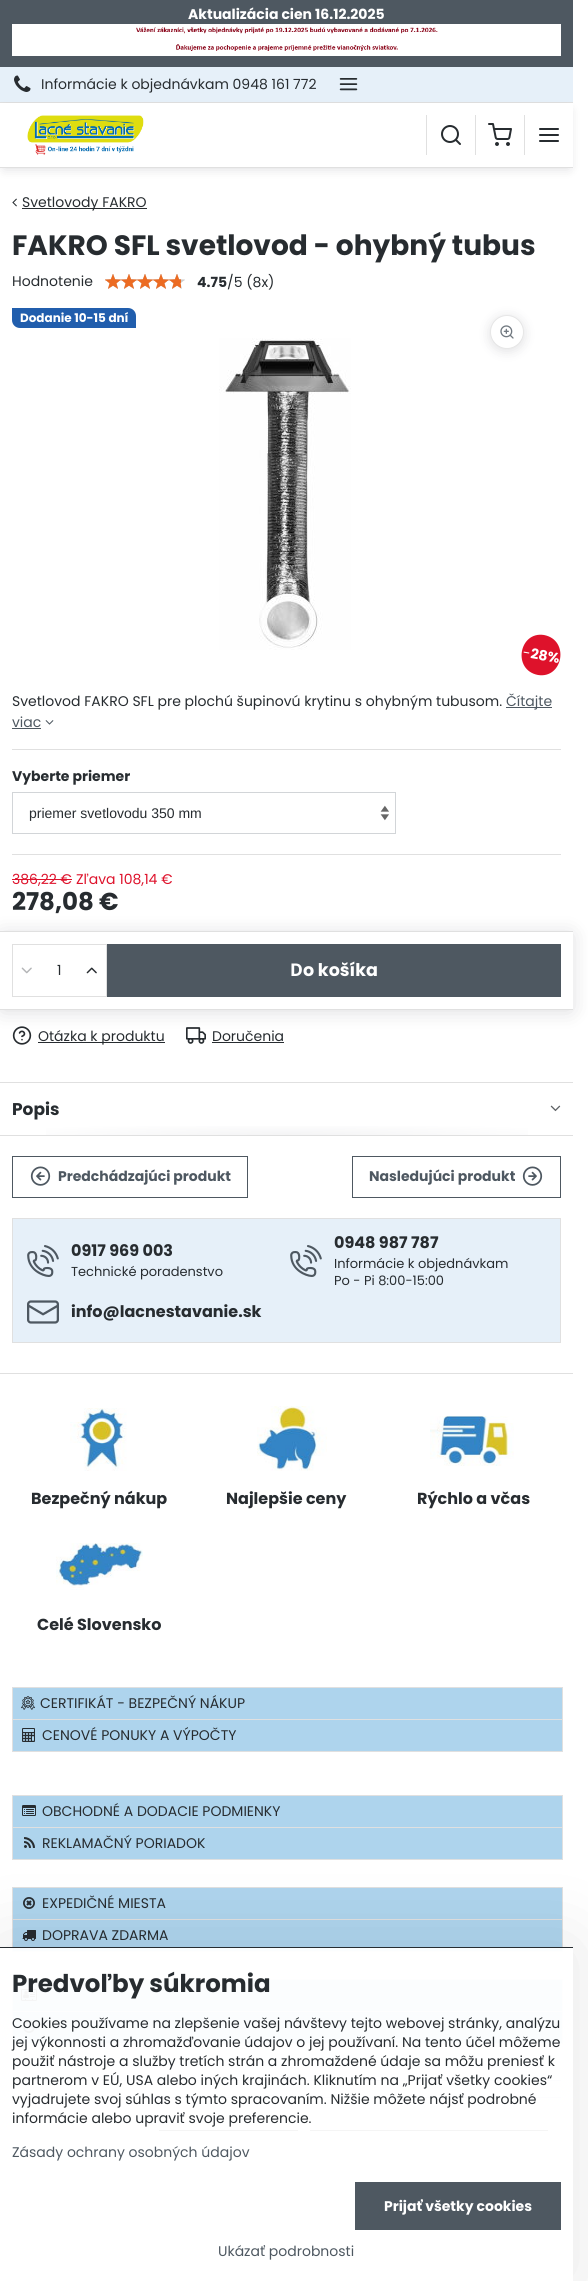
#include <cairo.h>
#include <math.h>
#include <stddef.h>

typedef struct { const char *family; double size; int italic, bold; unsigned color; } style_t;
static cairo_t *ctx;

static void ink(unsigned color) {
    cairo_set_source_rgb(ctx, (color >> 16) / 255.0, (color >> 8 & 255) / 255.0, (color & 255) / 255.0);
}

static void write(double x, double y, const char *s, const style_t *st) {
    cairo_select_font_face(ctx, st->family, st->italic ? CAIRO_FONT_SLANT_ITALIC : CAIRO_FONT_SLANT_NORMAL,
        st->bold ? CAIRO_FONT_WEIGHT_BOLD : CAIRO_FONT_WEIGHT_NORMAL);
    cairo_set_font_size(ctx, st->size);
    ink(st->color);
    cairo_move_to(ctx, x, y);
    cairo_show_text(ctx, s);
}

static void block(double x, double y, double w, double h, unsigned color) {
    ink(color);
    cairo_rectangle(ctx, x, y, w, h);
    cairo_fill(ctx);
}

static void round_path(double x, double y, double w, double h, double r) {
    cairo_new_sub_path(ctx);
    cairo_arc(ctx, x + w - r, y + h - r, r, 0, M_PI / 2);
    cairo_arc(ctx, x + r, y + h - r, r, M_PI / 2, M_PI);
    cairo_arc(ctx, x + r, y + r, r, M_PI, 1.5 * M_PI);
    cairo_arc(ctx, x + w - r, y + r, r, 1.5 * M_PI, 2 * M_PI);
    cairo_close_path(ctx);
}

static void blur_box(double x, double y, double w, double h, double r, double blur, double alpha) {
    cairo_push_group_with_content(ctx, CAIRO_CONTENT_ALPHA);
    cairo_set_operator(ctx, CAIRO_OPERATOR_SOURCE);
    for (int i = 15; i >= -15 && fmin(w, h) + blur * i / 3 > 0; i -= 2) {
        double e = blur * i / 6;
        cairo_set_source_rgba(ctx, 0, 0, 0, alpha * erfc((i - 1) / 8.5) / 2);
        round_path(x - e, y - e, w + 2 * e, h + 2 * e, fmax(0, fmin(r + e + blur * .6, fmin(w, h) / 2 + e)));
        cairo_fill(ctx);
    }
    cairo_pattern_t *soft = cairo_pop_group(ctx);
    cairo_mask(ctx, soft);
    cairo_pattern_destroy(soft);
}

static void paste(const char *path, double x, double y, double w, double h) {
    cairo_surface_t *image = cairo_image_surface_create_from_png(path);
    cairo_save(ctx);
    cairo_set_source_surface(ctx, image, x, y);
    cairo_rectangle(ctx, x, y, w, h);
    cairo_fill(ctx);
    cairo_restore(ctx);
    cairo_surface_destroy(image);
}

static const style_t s1 = {"Poppins", 14, 0, 1, 0xffffff};
static const style_t s2 = {"Poppins", 14, 0, 0, 0x272c30};
static const style_t s3 = {"Poppins", 28, 0, 1, 0x272c30};
static const style_t s4 = {"Poppins", 14, 0, 1, 0x272c30};
static const style_t s5 = {"Poppins", 14, 0, 0, 0x4e5861};
static const style_t s6 = {"Liberation Sans", 14, 0, 0, 0x272c30};
static const style_t s7 = {"Poppins", 14, 0, 0, 0xde122b};
static const style_t s8 = {"Poppins", 24.5, 0, 1, 0x272c30};
static const style_t s9 = {"Noto Sans", 17.5, 0, 1, 0xffffff};
static const style_t s10 = {"Poppins", 17.5, 0, 1, 0xffffff};
static const style_t s11 = {"Poppins", 12, 0, 1, 0xffffff};
static const style_t s12 = {"Poppins", 14, 0, 0, 0xffffff};
static const style_t s13 = {"Poppins", 17, 0, 1, 0x272c30};
static const style_t s14 = {"Poppins", 14, 0, 1, 0x4e5861};
static const style_t s15 = {"Poppins", 16, 0, 1, 0x272c30};
static const style_t s16 = {"Poppins", 13, 0, 0, 0x272c30};

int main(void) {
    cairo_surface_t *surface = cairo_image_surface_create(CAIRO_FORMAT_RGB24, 588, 2281);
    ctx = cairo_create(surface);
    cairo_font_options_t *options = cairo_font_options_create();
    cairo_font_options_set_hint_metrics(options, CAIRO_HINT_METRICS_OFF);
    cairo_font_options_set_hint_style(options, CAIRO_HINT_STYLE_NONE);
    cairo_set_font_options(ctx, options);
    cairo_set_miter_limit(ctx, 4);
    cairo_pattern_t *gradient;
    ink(0xffffff);
    cairo_paint(ctx);
    block(0, 0, 573, 67, 0x4e5861);
    write(188, 19, "Aktualizácia cien 16.12.2025", &s1);
    paste("pic1.png", 12, 24, 549, 32);
    block(0, 67, 573, 35, 0xe6f0f9);
    block(0, 102, 573, 1, 0xe0e0e0);
    paste("pic2.png", 14, 75, 17, 17);
    write(41, 89, "Informácie k objednávkam 0948 161 772", &s2);
    paste("pic3.png", 339, 78, 19, 13);
    cairo_save(ctx);
    cairo_set_fill_rule(ctx, CAIRO_FILL_RULE_EVEN_ODD);
    cairo_new_path(ctx);
    cairo_move_to(ctx, 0, 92);
    cairo_line_to(ctx, 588, 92);
    cairo_line_to(ctx, 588, 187);
    cairo_line_to(ctx, 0, 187);
    cairo_close_path(ctx);
    cairo_move_to(ctx, 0, 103);
    cairo_line_to(ctx, 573, 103);
    cairo_line_to(ctx, 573, 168);
    cairo_line_to(ctx, 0, 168);
    cairo_close_path(ctx);
    cairo_clip(ctx);
    ink(0x000014);
    blur_box(4, 111, 565, 57, 0, 6, 0.15);
    cairo_restore(ctx);
    block(0, 167, 573, 1, 0xe0e0e0);
    paste("pic4.png", 27, 115, 117, 40);
    block(426, 115, 1, 40, 0xe0e0e0);
    paste("pic5.png", 441, 125, 20, 20);
    block(475, 115, 1, 40, 0xe0e0e0);
    paste("pic6.png", 488, 123, 24, 23);
    block(524, 115, 1, 40, 0xe0e0e0);
    paste("pic7.png", 539, 128, 20, 14);
    paste("pic8.png", 12, 198, 5, 9);
    block(22, 208, 125, 1, 0x272c30);
    write(22, 207, "Svetlovody FAKRO", &s2);
    write(12, 255, "FAKRO SFL svetlovod - ohybný tubus", &s3);
    write(12, 286, "Hodnotenie", &s2);
    paste("pic9.png", 105, 274, 80, 15);
    paste("pic10.png", 105, 274, 76, 15);
    write(197, 287, "4.75", &s4);
    write(227, 287, "/5 (8x)", &s2);
    block(506, 707, 46, 1, 0x4e5861);
    write(506, 706, "Čítajte", &s5);
    write(12, 727, "viac", &s5);
    block(12, 728, 29, 1, 0x4e5861);
    paste("pic11.png", 45, 720, 9, 5);
    write(12, 706, "Svetlovod FAKRO SFL pre plochú šupinovú krytinu s ohybným tubusom.", &s2);
    block(12, 749, 549, 1, 0xe0e0e0);
    write(12, 781, "Vyberte priemer", &s4);
    paste("pic12.png", 380, 805, 9, 16);
    cairo_rectangle(ctx, 12.5, 792.5, 383, 41);
    ink(0xd2d5d8);
    cairo_set_line_width(ctx, 1);
    cairo_stroke(ctx);
    write(29, 818, "priemer svetlovodu 350 mm", &s6);
    block(12, 854, 549, 1, 0xe0e0e0);
    write(12, 884, "386,22 €", &s7);
    block(12, 879, 60, 1, 0xde122b);
    write(76, 884, "Zľava 108,14 €", &s7);
    write(12, 910, "278,08 €", &s8);
    paste("pic15.png", 12, 1026, 20, 19);
    block(38, 1042, 127, 1, 0x272c30);
    paste("pic16.png", 186, 1027, 20, 17);
    block(212, 1042, 72, 1, 0x272c30);
    cairo_save(ctx);
    cairo_set_fill_rule(ctx, CAIRO_FILL_RULE_EVEN_ODD);
    cairo_new_path(ctx);
    cairo_move_to(ctx, 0, 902);
    cairo_line_to(ctx, 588, 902);
    cairo_line_to(ctx, 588, 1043);
    cairo_line_to(ctx, 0, 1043);
    cairo_close_path(ctx);
    cairo_move_to(ctx, 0, 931);
    cairo_line_to(ctx, 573, 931);
    cairo_line_to(ctx, 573, 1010);
    cairo_line_to(ctx, 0, 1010);
    cairo_close_path(ctx);
    cairo_clip(ctx);
    ink(0x000014);
    blur_box(2, 935, 569, 75, 0, 10.5, 0.15);
    cairo_restore(ctx);
    block(0, 931, 573, 1, 0xe0e0e0);
    block(0, 1009, 573, 1, 0xe0e0e0);
    cairo_rectangle(ctx, 12.5, 944.5, 94, 52);
    cairo_stroke(ctx);
    paste("pic13.png", 21, 967, 11, 7);
    write(57, 975, "1", &s2);
    paste("pic14.png", 86, 967, 11, 7);
    block(107, 944, 454, 53, 0x4e5861);
    write(290, 976, "D", &s9);
    write(303, 976, "o košíka", &s10);
    write(38, 1041, "Otázka k produktu", &s2);
    write(212, 1041, "Doručenia", &s2);
    ink(0x215ead);
    cairo_new_path(ctx);
    cairo_move_to(ctx, 12, 308);
    cairo_line_to(ctx, 128, 308);
    cairo_curve_to(ctx, 132.5, 308, 136, 311.5, 136, 316);
    cairo_line_to(ctx, 136, 328);
    cairo_line_to(ctx, 20, 328);
    cairo_curve_to(ctx, 15.5, 328, 12, 324.5, 12, 320);
    cairo_close_path(ctx);
    cairo_fill(ctx);
    write(20, 322, "Dodanie 10-15 dní", &s11);
    paste("pic17.png", 219, 338, 132, 312);
    ink(0x333343);
    blur_box(490, 317, 34, 34, 17, 6, 0.15);
    ink(0xffffff);
    cairo_arc(ctx, 507, 332, 16.5, 0, 2 * M_PI);
    cairo_fill_preserve(ctx);
    ink(0xe6e6e6);
    cairo_stroke(ctx);
    paste("pic18.png", 500, 325, 14, 14);
    ink(0xde122b);
    cairo_new_path(ctx);
    cairo_move_to(ctx, 544, 635);
    cairo_curve_to(ctx, 570, 640, 563, 679, 538, 675);
    cairo_curve_to(ctx, 512, 670, 519, 631, 544, 635);
    cairo_close_path(ctx);
    cairo_fill(ctx);
    cairo_save(ctx);
    cairo_translate(ctx, 522, 657);
    cairo_rotate(ctx, 10 * M_PI / 180);
    write(0, 0, "-", &s12);
    cairo_restore(ctx);
    cairo_save(ctx);
    cairo_translate(ctx, 530, 658);
    cairo_rotate(ctx, 10 * M_PI / 180);
    write(0, 0, "28%", &s1);
    cairo_restore(ctx);
    block(0, 1135, 573, 1, 0xe0e0e0);
    gradient = cairo_pattern_create_radial(0, 0, 0, 0, 0, 1);
    cairo_pattern_set_matrix(gradient, &(cairo_matrix_t){1.0 / 446, 0, 0, 1.0 / 17, -1.0 * 287 / 446, -1.0 * 1135 / 17});
    cairo_pattern_add_color_stop_rgba(gradient, 0, 0.957, 0.957, 0.961, 1);
    cairo_pattern_add_color_stop_rgba(gradient, 0.7, 1, 1, 1, 1);
    cairo_set_source(ctx, gradient);
    cairo_pattern_destroy(gradient);
    cairo_rectangle(ctx, 46, 1126, 482, 9);
    cairo_fill(ctx);
    block(0, 1082, 573, 1, 0xe0e0e0);
    write(12, 1115, "Popis", &s13);
    paste("pic19.png", 550, 1105, 11, 7);
    cairo_rectangle(ctx, 12.5, 1156.5, 235, 41);
    ink(0x4e5861);
    cairo_stroke(ctx);
    paste("pic20.png", 30, 1166, 21, 20);
    write(58, 1181, "Predchádzajúci produkt", &s14);
    cairo_rectangle(ctx, 352.5, 1156.5, 208, 41);
    cairo_stroke(ctx);
    write(369, 1181, "Nasledujúci produkt", &s14);
    paste("pic21.png", 522, 1166, 21, 20);
    ink(0xe6f0f9);
    cairo_rectangle(ctx, 12.5, 1218.5, 548, 124);
    cairo_fill_preserve(ctx);
    ink(0xe0e0e0);
    cairo_stroke(ctx);
    paste("pic22.png", 27, 1245, 32, 32);
    write(71, 1256, "0917 969 003", &s15);
    write(71, 1276, "Technické poradenstvo", &s16);
    paste("pic22.png", 290, 1245, 32, 32);
    write(334, 1248, "0948 987 787", &s15);
    write(334, 1268, "Informácie k objednávkam", &s16);
    write(334, 1285, "Po - Pi 8:00-15:00", &s16);
    paste("pic23.png", 27, 1300, 32, 24);
    write(71, 1317, "info@lacnestavanie.sk", &s15);
    block(0, 1373, 573, 1, 0xe0e0e0);
    paste("pic24.png", 70, 1408, 57, 63);
    write(31, 1504, "Bezpečný nákup", &s15);
    paste("pic25.png", 257, 1406, 70, 65);
    write(226, 1504, "Najlepšie ceny", &s15);
    paste("pic26.png", 430, 1416, 84, 50);
    write(417, 1504, "Rýchlo a včas", &s15);
    paste("pic27.png", 56, 1543, 87, 47);
    write(37, 1630, "Celé Slovensko", &s15);
    ink(0xaed4ed);
    cairo_rectangle(ctx, 12.5, 1687.5, 550, 64);
    cairo_fill_preserve(ctx);
    ink(0xe0e0e0);
    cairo_stroke(ctx);
    block(13, 1719, 549, 1, 0xe0e0e0);
    paste("pic28.png", 21, 1696, 14, 14);
    write(40, 1708, "CERTIFIKÁT - BEZPEČNÝ NÁKUP", &s2);
    paste("pic29.png", 22, 1728, 13, 14);
    write(42, 1740, "CENOVÉ PONUKY A VÝPOČTY", &s2);
    ink(0xaed4ed);
    cairo_rectangle(ctx, 12.5, 1795.5, 550, 64);
    cairo_fill_preserve(ctx);
    ink(0xe0e0e0);
    cairo_stroke(ctx);
    block(13, 1827, 549, 1, 0xe0e0e0);
    paste("pic30.png", 22, 1805, 14, 11);
    write(42, 1816, "OBCHODNÉ A DODACIE PODMIENKY", &s2);
    paste("pic31.png", 24, 1837, 11, 11);
    write(42, 1848, "REKLAMAČNÝ PORIADOK", &s2);
    ink(0xaed4ed);
    cairo_rectangle(ctx, 12.5, 1887.5, 550, 64);
    cairo_fill_preserve(ctx);
    ink(0xe0e0e0);
    cairo_stroke(ctx);
    block(13, 1919, 549, 1, 0xe0e0e0);
    paste("pic32.png", 23, 1897, 12, 12);
    write(42, 1908, "EXPEDIČNÉ MIESTA", &s2);
    paste("pic33.png", 22, 1930, 14, 11);
    write(42, 1940, "DOPRAVA ZDARMA", &s2);
    ink(0xaed4ed);
    cairo_rectangle(ctx, 12.5, 1979.5, 550, 64);
    cairo_fill_preserve(ctx);
    ink(0xe0e0e0);
    cairo_stroke(ctx);
    block(13, 2011, 549, 1, 0xe0e0e0);
    paste("pic34.png", 21, 1989, 16, 12);
    paste("pic35.png", 23, 2021, 12, 12);
    block(12, 2080, 549, 1, 0xdfdfe0);
    block(12, 2097, 549, 1, 0xdfdfe0);
    block(159, 2130, 139, 1, 0x272c30);
    block(310, 2130, 238, 1, 0x272c30);
    cairo_save(ctx);
    cairo_set_fill_rule(ctx, CAIRO_FILL_RULE_EVEN_ODD);
    cairo_new_path(ctx);
    cairo_move_to(ctx, 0, 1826);
    cairo_line_to(ctx, 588, 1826);
    cairo_line_to(ctx, 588, 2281);
    cairo_line_to(ctx, 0, 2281);
    cairo_close_path(ctx);
    cairo_move_to(ctx, 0, 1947);
    cairo_line_to(ctx, 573, 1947);
    cairo_line_to(ctx, 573, 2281);
    cairo_line_to(ctx, 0, 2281);
    cairo_close_path(ctx);
    cairo_clip(ctx);
    ink(0x000000);
    blur_box(0, 1947, 573, 334, 0, 40, 0.1);
    cairo_restore(ctx);
    cairo_set_source_rgba(ctx, 1, 1, 1, 0.95);
    cairo_rectangle(ctx, 12, 1948, 551, 183);
    cairo_fill(ctx);
    block(0, 1947, 573, 1, 0x272c30);
    write(12, 1992, "Predvoľby súkromia", &s8);
    write(12, 2028, "Cookies používame na zlepšenie vašej návštevy tejto webovej stránky, analýzu", &s2);
    write(12, 2047, "jej výkonnosti a zhromažďovanie údajov o jej používaní. Na tento účel môžeme", &s2);
    write(12, 2066, "použiť nástroje a služby tretích strán a zhromaždené údaje sa môžu preniesť k", &s2);
    write(12, 2085, "partnerom v EÚ, USA alebo iných krajinách. Kliknutím na „Prijať všetky cookies“", &s2);
    write(12, 2104, "vyjadrujete svoj súhlas s týmto spracovaním. Nižšie môžete nájsť podrobné", &s2);
    write(12, 2123, "informácie alebo upraviť svoje preferencie.", &s2);
    write(12, 2157, "Zásady ochrany osobných údajov", &s5);
    block(355, 2182, 206, 48, 0x4e5861);
    write(384, 2211, "Prijať všetky cookies", &s1);
    write(218, 2256, "Ukázať podrobnosti", &s5);
    cairo_surface_write_to_png(surface, "screenshot.png");
    cairo_font_options_destroy(options);
    cairo_destroy(ctx);
    cairo_surface_destroy(surface);
    return 0;
}
